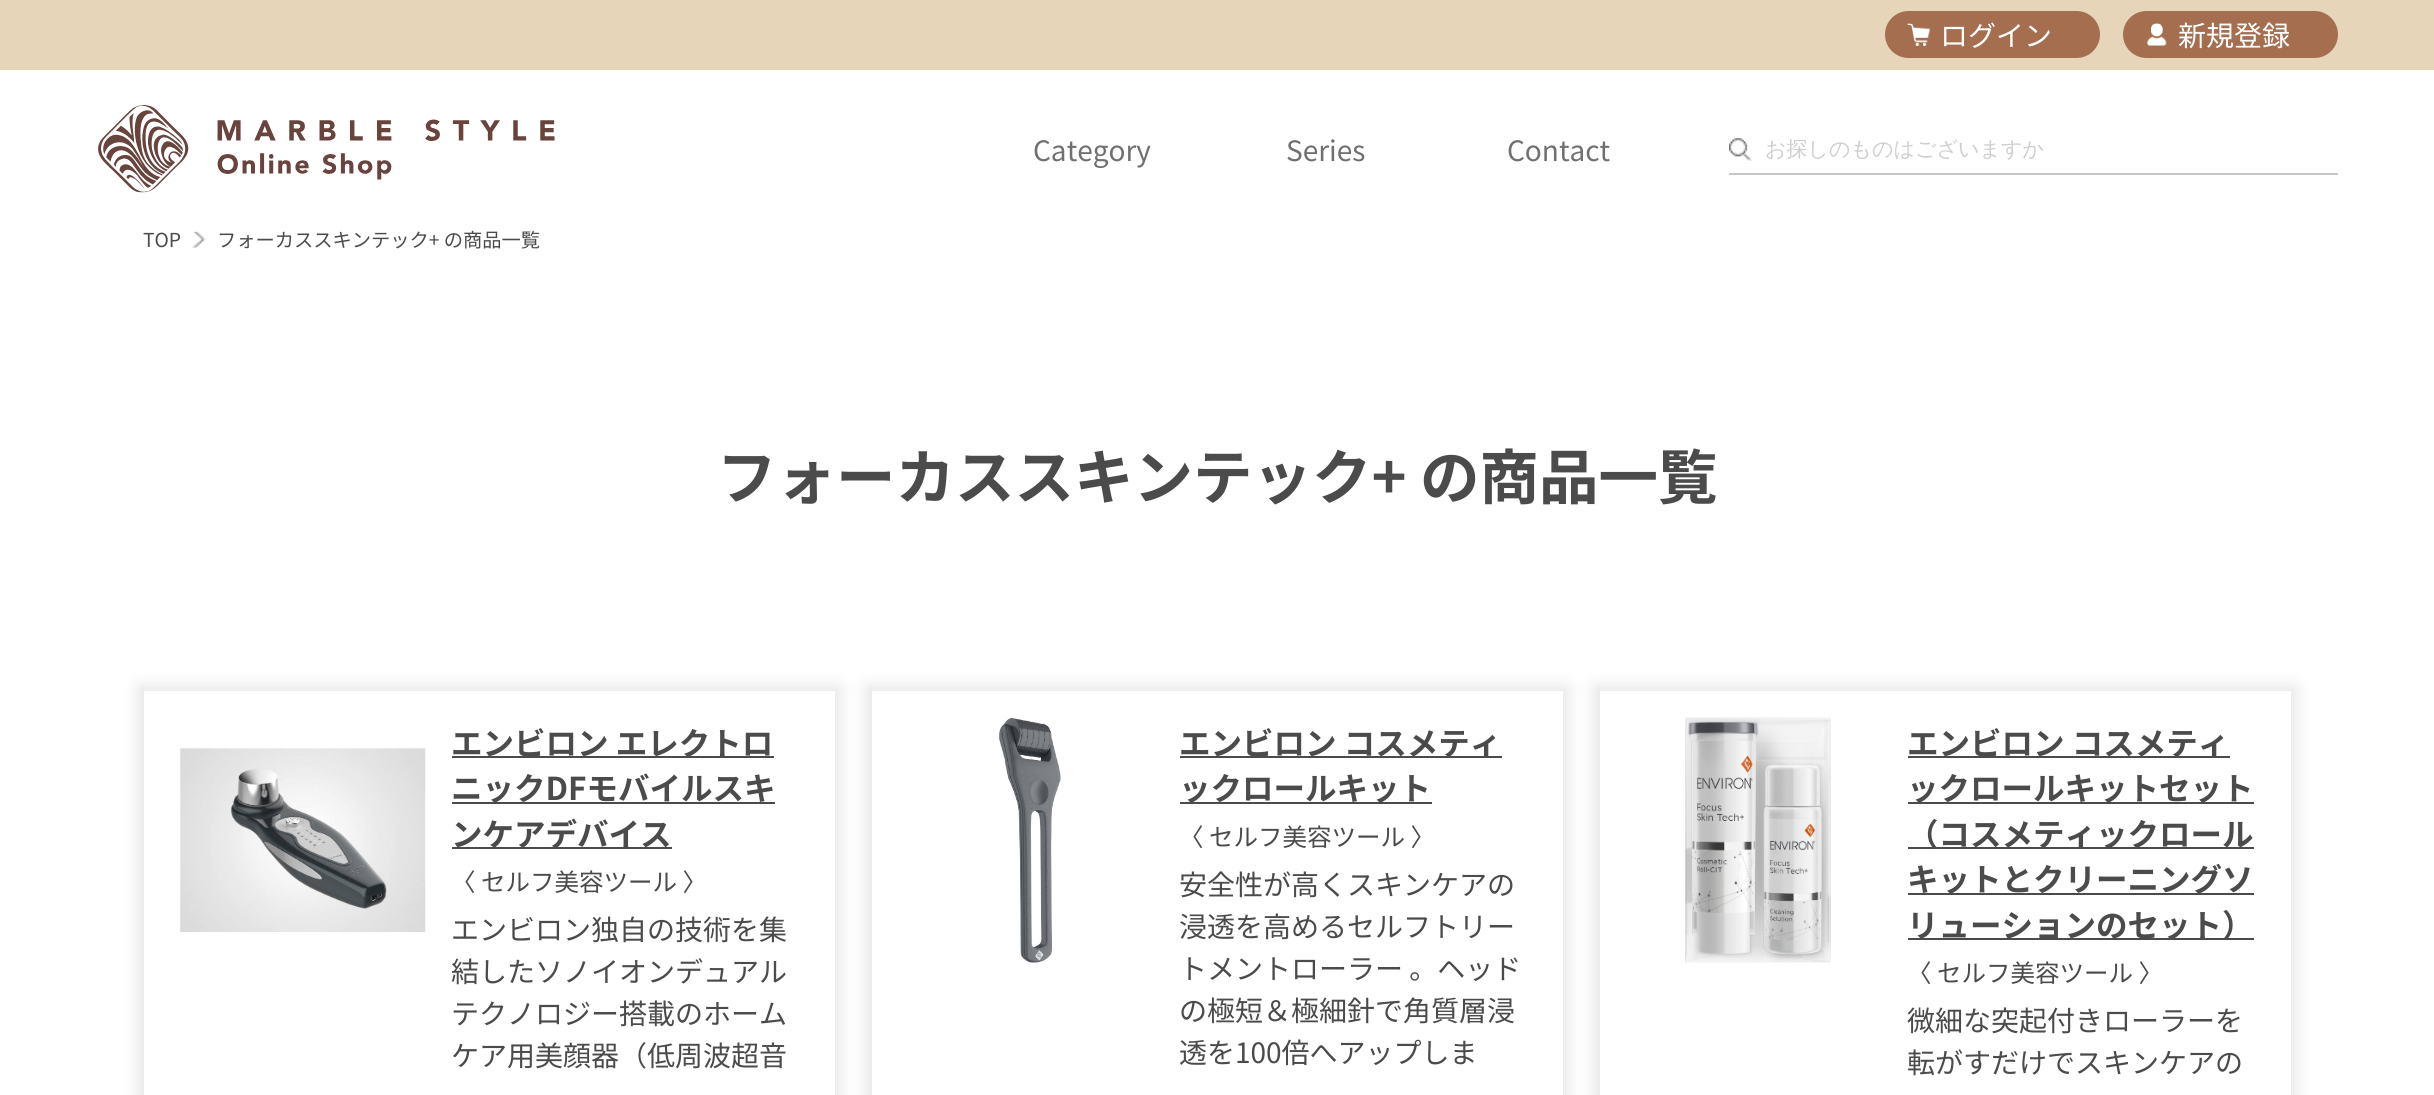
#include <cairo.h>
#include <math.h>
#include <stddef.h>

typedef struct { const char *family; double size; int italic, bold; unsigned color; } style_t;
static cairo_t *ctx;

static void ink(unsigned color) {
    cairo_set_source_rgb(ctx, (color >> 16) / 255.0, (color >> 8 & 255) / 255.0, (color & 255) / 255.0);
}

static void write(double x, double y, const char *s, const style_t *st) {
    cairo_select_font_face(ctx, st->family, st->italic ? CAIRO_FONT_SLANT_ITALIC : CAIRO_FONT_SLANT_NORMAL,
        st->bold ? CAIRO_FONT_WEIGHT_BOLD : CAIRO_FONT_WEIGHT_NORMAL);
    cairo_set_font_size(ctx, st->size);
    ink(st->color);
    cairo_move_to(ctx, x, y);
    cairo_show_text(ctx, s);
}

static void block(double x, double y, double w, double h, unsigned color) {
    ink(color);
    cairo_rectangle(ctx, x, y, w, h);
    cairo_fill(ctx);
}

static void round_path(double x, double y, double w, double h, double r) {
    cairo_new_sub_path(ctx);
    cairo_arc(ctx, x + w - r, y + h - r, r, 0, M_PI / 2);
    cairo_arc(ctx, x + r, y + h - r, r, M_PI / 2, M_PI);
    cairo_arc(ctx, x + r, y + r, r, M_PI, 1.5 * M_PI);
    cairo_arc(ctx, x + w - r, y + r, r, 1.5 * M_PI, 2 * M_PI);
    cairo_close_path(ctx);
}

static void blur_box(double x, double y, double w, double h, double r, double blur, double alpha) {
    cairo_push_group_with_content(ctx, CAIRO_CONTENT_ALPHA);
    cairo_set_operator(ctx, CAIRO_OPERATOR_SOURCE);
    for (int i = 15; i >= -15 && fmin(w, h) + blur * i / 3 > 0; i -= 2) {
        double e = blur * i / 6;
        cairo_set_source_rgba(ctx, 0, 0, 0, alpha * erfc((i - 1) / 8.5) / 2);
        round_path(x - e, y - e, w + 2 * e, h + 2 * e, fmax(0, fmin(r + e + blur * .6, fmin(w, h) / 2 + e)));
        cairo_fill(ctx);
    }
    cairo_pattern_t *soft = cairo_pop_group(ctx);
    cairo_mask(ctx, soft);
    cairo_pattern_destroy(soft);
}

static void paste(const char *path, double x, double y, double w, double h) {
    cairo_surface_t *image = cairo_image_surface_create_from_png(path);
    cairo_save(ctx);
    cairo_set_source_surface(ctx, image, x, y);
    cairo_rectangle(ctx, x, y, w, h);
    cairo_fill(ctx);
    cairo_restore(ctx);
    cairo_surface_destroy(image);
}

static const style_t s1 = {"Noto Sans JP", 28, 0, 0, 0xffffff};
static const style_t s2 = {"Noto Sans JP", 28, 0, 0, 0x707070};
static const style_t s3 = {"WenQuanYi Zen Hei Medium", 21, 0, 0, 0xcecece};
static const style_t s4 = {"Noto Sans JP", 19.25, 0, 0, 0x4b4b4b};
static const style_t s5 = {"Noto Sans JP", 59.5, 0, 1, 0x4b4b4b};
static const style_t s6 = {"Noto Sans JP", 31.5, 0, 1, 0x4b4b4b};
static const style_t s7 = {"Noto Sans JP", 24.5, 0, 0, 0x4b4b4b};
static const style_t s8 = {"Noto Sans JP", 28, 0, 0, 0x4b4b4b};

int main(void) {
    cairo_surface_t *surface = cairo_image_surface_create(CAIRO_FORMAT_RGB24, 2434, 1095);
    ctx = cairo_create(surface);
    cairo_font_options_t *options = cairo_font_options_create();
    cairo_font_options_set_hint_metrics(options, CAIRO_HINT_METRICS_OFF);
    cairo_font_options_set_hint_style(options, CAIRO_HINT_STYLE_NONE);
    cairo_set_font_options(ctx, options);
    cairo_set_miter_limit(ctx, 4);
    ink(0xffffff);
    cairo_paint(ctx);
    block(0, 0, 2434, 70, 0xe7d5ba);
    ink(0xa46e4f);
    round_path(1885, 11, 215, 47, 23.5);
    cairo_fill(ctx);
    paste("pic1.png", 1907, 23, 24, 23);
    write(1940, 46, "ログイン", &s1);
    ink(0xa46e4f);
    round_path(2123, 11, 215, 47, 23.5);
    cairo_fill(ctx);
    paste("pic2.png", 2147, 23, 20, 23);
    write(2178, 46, "新規登録", &s1);
    paste("pic3.png", 98, 105, 457, 88);
    write(1033, 161, "Category", &s2);
    write(1286, 161, "Series", &s2);
    write(1507, 161, "Contact", &s2);
    paste("pic4.png", 1729, 138, 23, 23);
    block(1729, 173, 609, 2, 0xc6c6c6);
    write(1765, 156, "お探しのものはございますか", &s3);
    write(143, 247, "TOP", &s4);
    paste("pic5.png", 192, 231, 14, 17);
    write(217, 247, "フォーカススキンテック+ の商品一覧", &s4);
    write(717, 499, "フォーカススキンテック+ の商品一覧", &s5);
    cairo_save(ctx);
    cairo_set_fill_rule(ctx, CAIRO_FILL_RULE_EVEN_ODD);
    cairo_new_path(ctx);
    cairo_move_to(ctx, 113, 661);
    cairo_line_to(ctx, 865, 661);
    cairo_line_to(ctx, 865, 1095);
    cairo_line_to(ctx, 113, 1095);
    cairo_close_path(ctx);
    cairo_move_to(ctx, 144, 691);
    cairo_line_to(ctx, 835, 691);
    cairo_line_to(ctx, 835, 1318);
    cairo_line_to(ctx, 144, 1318);
    cairo_close_path(ctx);
    cairo_clip(ctx);
    ink(0x000000);
    blur_box(138, 686, 702, 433, 0, 8, 0.1);
    cairo_restore(ctx);
    paste("pic6.png", 180, 748, 246, 184);
    block(452, 756, 322, 2, 0x4b4b4b);
    write(451, 755, "エンビロン エレクトロ", &s6);
    block(452, 802, 323, 2, 0x4b4b4b);
    write(451, 800, "ニックDFモバイルスキ", &s6);
    block(452, 847, 220, 2, 0x4b4b4b);
    write(451, 846, "ンケアデバイス", &s6);
    write(451, 891, "〈 セルフ美容ツール 〉", &s7);
    write(451, 940, "エンビロン独自の技術を集", &s8);
    write(451, 982, "結したソノイオンデュアル", &s8);
    write(451, 1024, "テクノロジー搭載のホーム", &s8);
    write(451, 1066, "ケア用美顔器（低周波超音", &s8);
    cairo_save(ctx);
    cairo_set_fill_rule(ctx, CAIRO_FILL_RULE_EVEN_ODD);
    cairo_new_path(ctx);
    cairo_move_to(ctx, 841, 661);
    cairo_line_to(ctx, 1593, 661);
    cairo_line_to(ctx, 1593, 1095);
    cairo_line_to(ctx, 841, 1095);
    cairo_close_path(ctx);
    cairo_move_to(ctx, 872, 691);
    cairo_line_to(ctx, 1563, 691);
    cairo_line_to(ctx, 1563, 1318);
    cairo_line_to(ctx, 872, 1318);
    cairo_close_path(ctx);
    cairo_clip(ctx);
    ink(0x000000);
    blur_box(866, 686, 702, 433, 0, 8, 0.1);
    cairo_restore(ctx);
    paste("pic7.png", 999, 717, 62, 246);
    block(1180, 756, 322, 2, 0x4b4b4b);
    write(1179, 755, "エンビロン コスメティ", &s6);
    block(1180, 802, 252, 2, 0x4b4b4b);
    write(1179, 800, "ックロールキット", &s6);
    write(1179, 846, "〈 セルフ美容ツール 〉", &s7);
    write(1179, 895, "安全性が高くスキンケアの", &s8);
    write(1179, 937, "浸透を高めるセルフトリー", &s8);
    write(1179, 979, "トメントローラー 。ヘッド", &s8);
    write(1179, 1021, "の極短＆極細針で角質層浸", &s8);
    write(1179, 1063, "透を100倍へアップしま", &s8);
    cairo_save(ctx);
    cairo_set_fill_rule(ctx, CAIRO_FILL_RULE_EVEN_ODD);
    cairo_new_path(ctx);
    cairo_move_to(ctx, 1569, 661);
    cairo_line_to(ctx, 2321, 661);
    cairo_line_to(ctx, 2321, 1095);
    cairo_line_to(ctx, 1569, 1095);
    cairo_close_path(ctx);
    cairo_move_to(ctx, 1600, 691);
    cairo_line_to(ctx, 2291, 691);
    cairo_line_to(ctx, 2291, 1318);
    cairo_line_to(ctx, 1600, 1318);
    cairo_close_path(ctx);
    cairo_clip(ctx);
    ink(0x000000);
    blur_box(1594, 686, 702, 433, 0, 8, 0.1);
    cairo_restore(ctx);
    paste("pic8.png", 1685, 717, 146, 246);
    block(1908, 756, 322, 2, 0x4b4b4b);
    write(1907, 755, "エンビロン コスメティ", &s6);
    block(1908, 802, 346, 2, 0x4b4b4b);
    write(1907, 800, "ックロールキットセット", &s6);
    block(1908, 847, 346, 2, 0x4b4b4b);
    write(1907, 846, "（コスメティックロール", &s6);
    block(1908, 893, 346, 2, 0x4b4b4b);
    write(1907, 891, "キットとクリーニングソ", &s6);
    block(1908, 938, 346, 2, 0x4b4b4b);
    write(1907, 937, "リューションのセット）", &s6);
    write(1907, 982, "〈 セルフ美容ツール 〉", &s7);
    write(1907, 1031, "微細な突起付きローラーを", &s8);
    write(1907, 1073, "転がすだけでスキンケアの", &s8);
    cairo_surface_write_to_png(surface, "screenshot.png");
    cairo_font_options_destroy(options);
    cairo_destroy(ctx);
    cairo_surface_destroy(surface);
    return 0;
}
